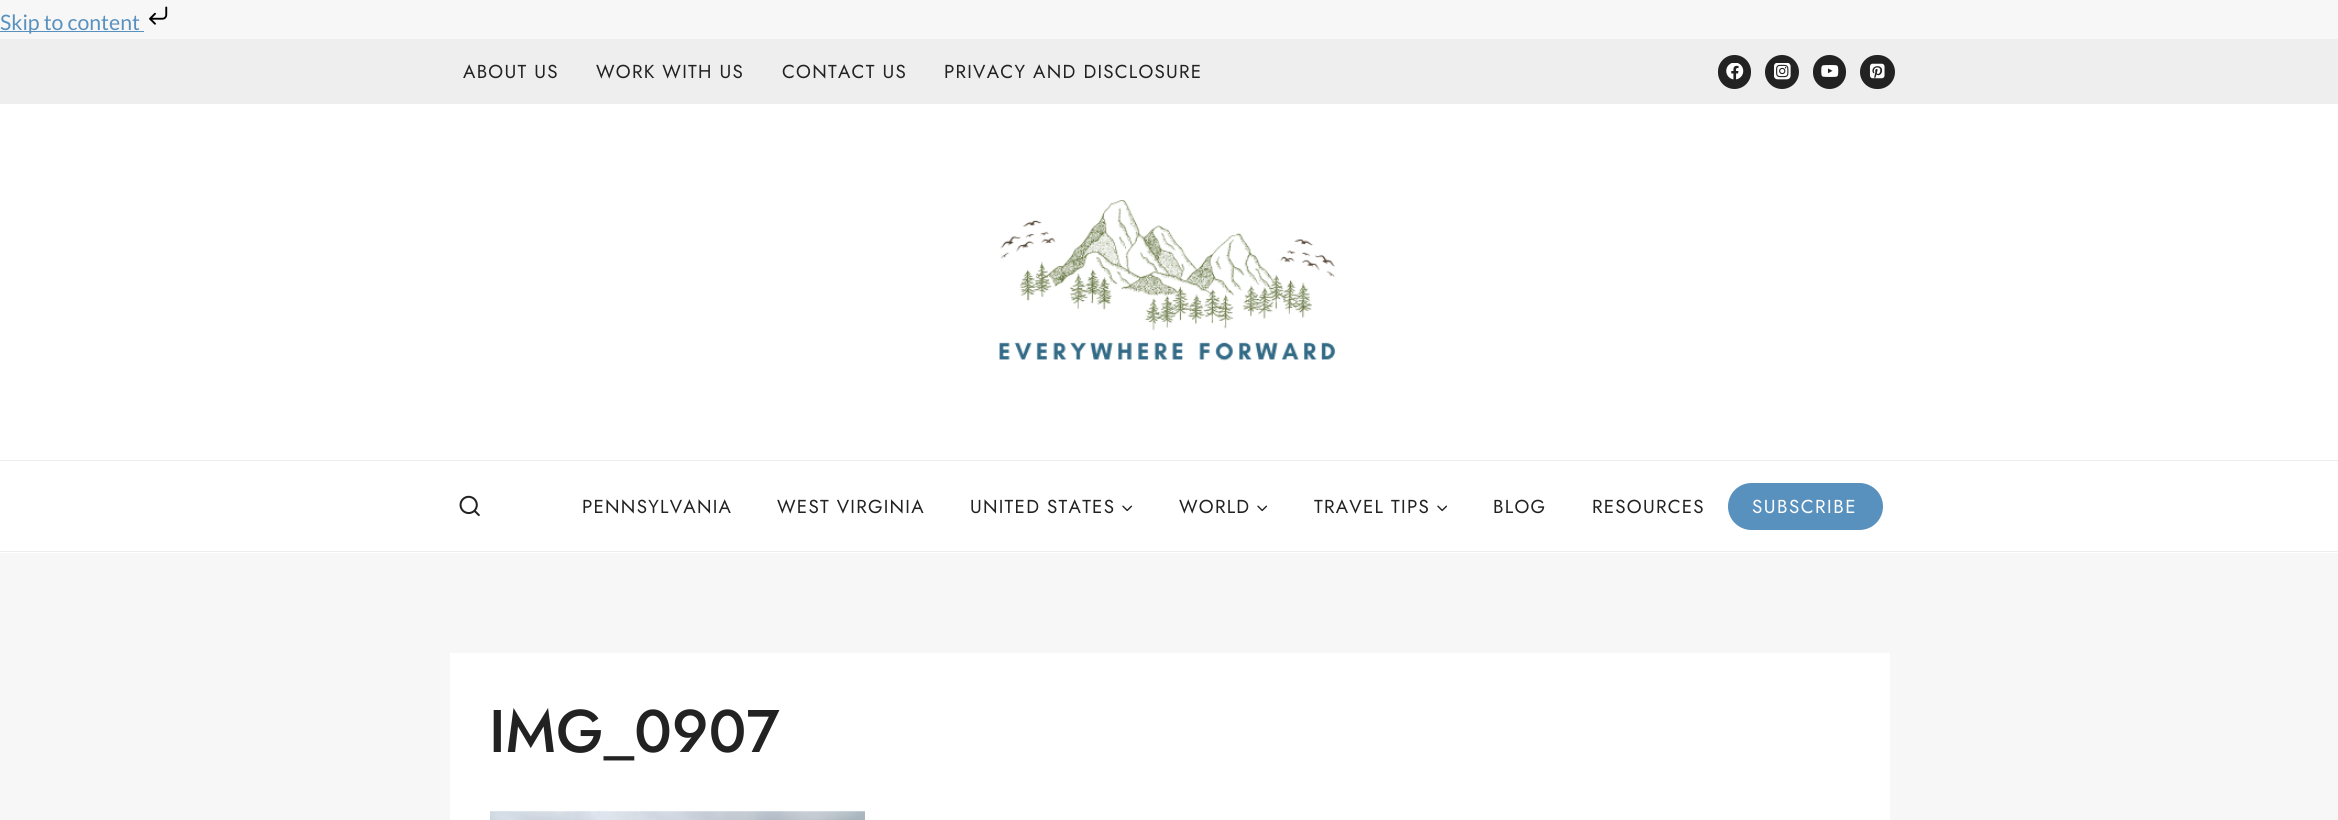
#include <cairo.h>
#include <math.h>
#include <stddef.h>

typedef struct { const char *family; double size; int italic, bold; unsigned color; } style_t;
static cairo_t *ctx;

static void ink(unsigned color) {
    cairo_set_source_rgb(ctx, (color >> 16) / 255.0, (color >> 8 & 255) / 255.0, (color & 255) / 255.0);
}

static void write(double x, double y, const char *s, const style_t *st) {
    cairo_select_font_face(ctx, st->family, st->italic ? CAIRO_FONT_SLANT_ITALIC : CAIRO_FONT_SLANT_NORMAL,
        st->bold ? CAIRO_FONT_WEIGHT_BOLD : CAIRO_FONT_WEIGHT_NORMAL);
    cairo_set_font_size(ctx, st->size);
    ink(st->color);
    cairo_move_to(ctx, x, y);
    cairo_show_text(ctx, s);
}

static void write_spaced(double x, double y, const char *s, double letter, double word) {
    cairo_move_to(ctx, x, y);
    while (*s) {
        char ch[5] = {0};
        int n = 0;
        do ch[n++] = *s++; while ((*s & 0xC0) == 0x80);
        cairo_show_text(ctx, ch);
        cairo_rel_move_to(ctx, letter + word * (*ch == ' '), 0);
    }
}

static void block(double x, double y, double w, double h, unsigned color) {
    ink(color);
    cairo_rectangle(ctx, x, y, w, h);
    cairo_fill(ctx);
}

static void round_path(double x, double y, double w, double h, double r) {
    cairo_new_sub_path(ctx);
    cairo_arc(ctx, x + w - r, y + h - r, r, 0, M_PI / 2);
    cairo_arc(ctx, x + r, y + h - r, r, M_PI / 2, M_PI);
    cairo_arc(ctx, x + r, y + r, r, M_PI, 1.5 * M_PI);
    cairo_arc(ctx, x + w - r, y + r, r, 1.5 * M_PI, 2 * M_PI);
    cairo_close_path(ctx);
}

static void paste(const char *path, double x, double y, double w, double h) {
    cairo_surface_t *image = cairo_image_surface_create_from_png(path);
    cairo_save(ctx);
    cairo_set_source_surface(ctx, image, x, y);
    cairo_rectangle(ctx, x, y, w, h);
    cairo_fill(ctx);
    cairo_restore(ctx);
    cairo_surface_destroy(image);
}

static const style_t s1 = {"Lato", 21.25, 0, 0, 0x5890be};
static const style_t s2 = {"Jost Medium", 60, 0, 0, 0x222222};

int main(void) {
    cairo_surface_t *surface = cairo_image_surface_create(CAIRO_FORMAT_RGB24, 2338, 820);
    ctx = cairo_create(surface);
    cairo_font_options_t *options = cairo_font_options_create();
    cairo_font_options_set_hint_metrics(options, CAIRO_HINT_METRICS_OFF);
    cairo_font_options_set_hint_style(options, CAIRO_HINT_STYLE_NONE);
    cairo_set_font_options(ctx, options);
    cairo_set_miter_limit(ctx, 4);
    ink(0xf7f7f7);
    cairo_paint(ctx);
    block(0, 31, 144, 1, 0x5890be);
    write(0, 30, "Skip to content", &s1);
    paste("pic1.png", 149, 6, 19, 19);
    block(0, 104, 2338, 449, 0xffffff);
    block(0, 39, 2338, 65, 0xeeeeee);
    cairo_select_font_face(ctx, "Jost", CAIRO_FONT_SLANT_NORMAL, CAIRO_FONT_WEIGHT_NORMAL);
    cairo_set_font_size(ctx, 18.75);
    ink(0x222222);
    write_spaced(463, 78, "ABOUT US", 1.25, 0);
    write_spaced(596, 78, "WORK WITH US", 1.25, 0);
    write_spaced(782, 78, "CONTACT US", 1.25, 0);
    write_spaced(944, 78, "PRIVACY AND DISCLOSURE", 1.25, 0);
    round_path(1718, 55, 33, 34, 16.5);
    cairo_fill(ctx);
    paste("pic2.png", 1726, 63, 18, 17);
    cairo_arc(ctx, 1782, 72, 17, 0, 2 * M_PI);
    cairo_fill(ctx);
    paste("pic3.png", 1774, 63, 17, 17);
    round_path(1813, 55, 33, 34, 16.5);
    cairo_fill(ctx);
    paste("pic4.png", 1821, 65, 18, 12);
    round_path(1860, 55, 35, 34, 17);
    cairo_fill(ctx);
    paste("pic5.png", 1869, 63, 16, 16);
    paste("pic6.png", 999, 199, 337, 162);
    block(0, 460, 2338, 1, 0xeeeeee);
    block(0, 551, 2338, 1, 0xeeeeee);
    paste("pic7.png", 459, 495, 21, 22);
    ink(0x222222);
    write_spaced(582, 513, "PENNSYLVANIA", 1.25, 0);
    write_spaced(777, 513, "WEST VIRGINIA", 1.25, 0);
    write_spaced(970, 513, "UNITED STATES", 1.25, 0);
    paste("pic8.png", 1122, 505, 11, 7);
    write_spaced(1179, 513, "WORLD", 1.25, 0);
    paste("pic8.png", 1257, 505, 11, 7);
    write_spaced(1314, 513, "TRAVEL TIPS", 1.25, 0);
    paste("pic8.png", 1437, 505, 11, 7);
    write_spaced(1493, 513, "BLOG", 1.25, 0);
    write_spaced(1592, 513, "RESOURCES", 1.25, 0);
    ink(0x5890be);
    round_path(1728, 483, 155, 47, 23.5);
    cairo_fill(ctx);
    ink(0xffffff);
    write_spaced(1752, 513, "SUBSCRIBE", 1.5, 0);
    block(450, 653, 1440, 167, 0xffffff);
    write(489, 752, "IMG_0907", &s2);
    paste("pic9.png", 490, 811, 375, 9);
    cairo_surface_write_to_png(surface, "screenshot.png");
    cairo_font_options_destroy(options);
    cairo_destroy(ctx);
    cairo_surface_destroy(surface);
    return 0;
}
